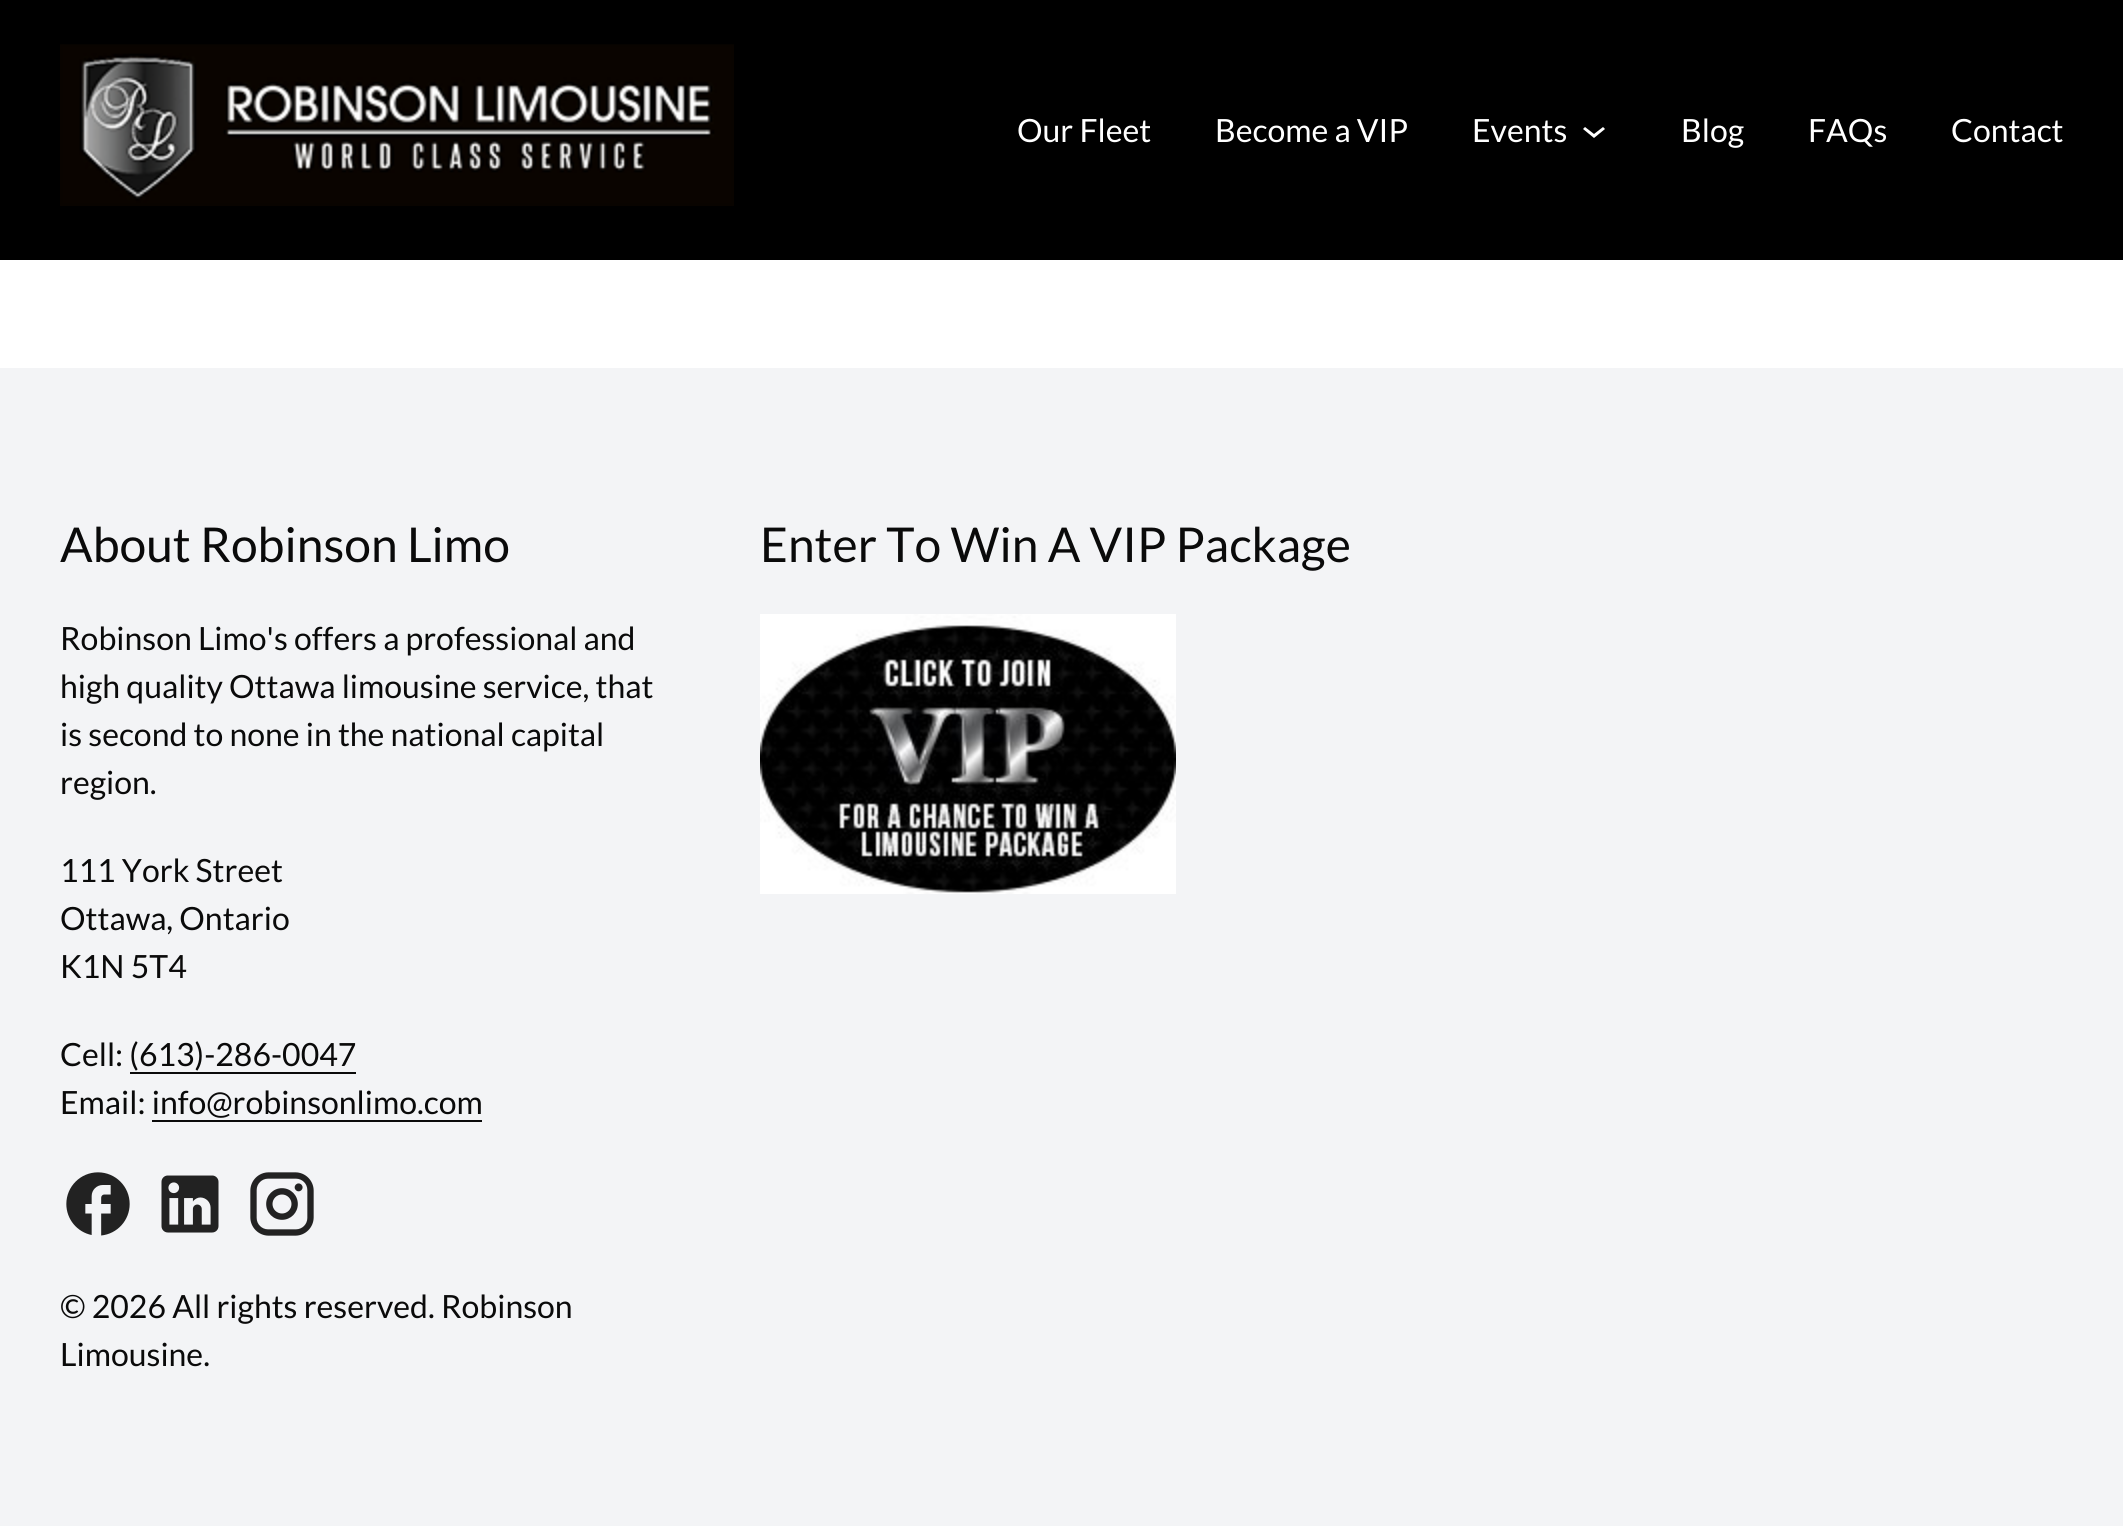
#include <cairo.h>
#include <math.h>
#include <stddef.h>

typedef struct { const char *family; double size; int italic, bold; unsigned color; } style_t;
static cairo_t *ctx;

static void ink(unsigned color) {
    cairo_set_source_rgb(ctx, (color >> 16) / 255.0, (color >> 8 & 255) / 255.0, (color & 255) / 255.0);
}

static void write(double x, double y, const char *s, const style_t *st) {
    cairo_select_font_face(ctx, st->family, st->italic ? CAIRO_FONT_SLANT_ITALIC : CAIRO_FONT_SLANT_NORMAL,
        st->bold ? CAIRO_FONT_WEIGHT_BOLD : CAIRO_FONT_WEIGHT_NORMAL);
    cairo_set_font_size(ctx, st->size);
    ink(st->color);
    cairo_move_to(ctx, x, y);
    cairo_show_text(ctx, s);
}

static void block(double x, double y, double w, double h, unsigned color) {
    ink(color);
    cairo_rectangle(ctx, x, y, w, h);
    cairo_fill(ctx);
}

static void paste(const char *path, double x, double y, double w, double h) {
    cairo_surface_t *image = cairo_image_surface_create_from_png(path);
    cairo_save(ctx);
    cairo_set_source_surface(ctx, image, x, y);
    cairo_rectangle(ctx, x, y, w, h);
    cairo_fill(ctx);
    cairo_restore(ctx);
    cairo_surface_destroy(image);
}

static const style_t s1 = {"Lato", 32, 0, 0, 0xffffff};
static const style_t s2 = {"Lato", 48, 0, 0, 0x0a0a0a};
static const style_t s3 = {"Lato", 32, 0, 0, 0x0a0a0a};

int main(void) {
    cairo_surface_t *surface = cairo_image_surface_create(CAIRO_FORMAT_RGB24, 2123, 1526);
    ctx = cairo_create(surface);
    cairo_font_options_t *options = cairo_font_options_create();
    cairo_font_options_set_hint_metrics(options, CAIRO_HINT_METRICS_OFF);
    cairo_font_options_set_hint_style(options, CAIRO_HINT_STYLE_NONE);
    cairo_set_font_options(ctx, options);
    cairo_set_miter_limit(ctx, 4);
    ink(0xffffff);
    cairo_paint(ctx);
    block(0, 0, 2123, 260, 0x000000);
    paste("pic1.png", 60, 44, 674, 162);
    write(1017, 142, "Our Fleet", &s1);
    write(1215, 142, "Become a VIP", &s1);
    write(1472, 142, "Events", &s1);
    cairo_new_path(ctx);
    cairo_move_to(ctx, 1605, 129);
    cairo_line_to(ctx, 1594, 138);
    cairo_line_to(ctx, 1583, 129);
    cairo_line_to(ctx, 1585, 127);
    cairo_line_to(ctx, 1594, 134);
    cairo_line_to(ctx, 1603, 127);
    cairo_close_path(ctx);
    cairo_fill(ctx);
    write(1681, 142, "Blog", &s1);
    write(1808, 142, "FAQs", &s1);
    write(1951, 142, "Contact", &s1);
    block(0, 368, 2123, 1158, 0xf3f4f6);
    write(60, 562, "About Robinson Limo", &s2);
    write(60, 650, "Robinson Limo's offers a professional and", &s3);
    write(60, 698, "high quality Ottawa limousine service, that", &s3);
    write(60, 746, "is second to none in the national capital", &s3);
    write(60, 794, "region.", &s3);
    write(60, 882, "111 York Street", &s3);
    write(60, 930, "Ottawa, Ontario", &s3);
    write(60, 978, "K1N 5T4", &s3);
    write(60, 1066, "Cell: (613)-286-0047", &s3);
    block(130, 1072, 226, 2, 0x0a0a0a);
    write(60, 1114, "Email: info@robinsonlimo.com", &s3);
    block(152, 1120, 330, 2, 0x0a0a0a);
    paste("pic2.png", 66, 1172, 64, 64);
    paste("pic3.png", 161, 1175, 58, 58);
    paste("pic4.png", 250, 1172, 64, 64);
    write(60, 1318, "© 2026 All rights reserved. Robinson", &s3);
    write(60, 1366, "Limousine.", &s3);
    write(760, 562, "Enter To Win A VIP Package", &s2);
    paste("pic5.png", 760, 614, 416, 280);
    cairo_surface_write_to_png(surface, "screenshot.png");
    cairo_font_options_destroy(options);
    cairo_destroy(ctx);
    cairo_surface_destroy(surface);
    return 0;
}
